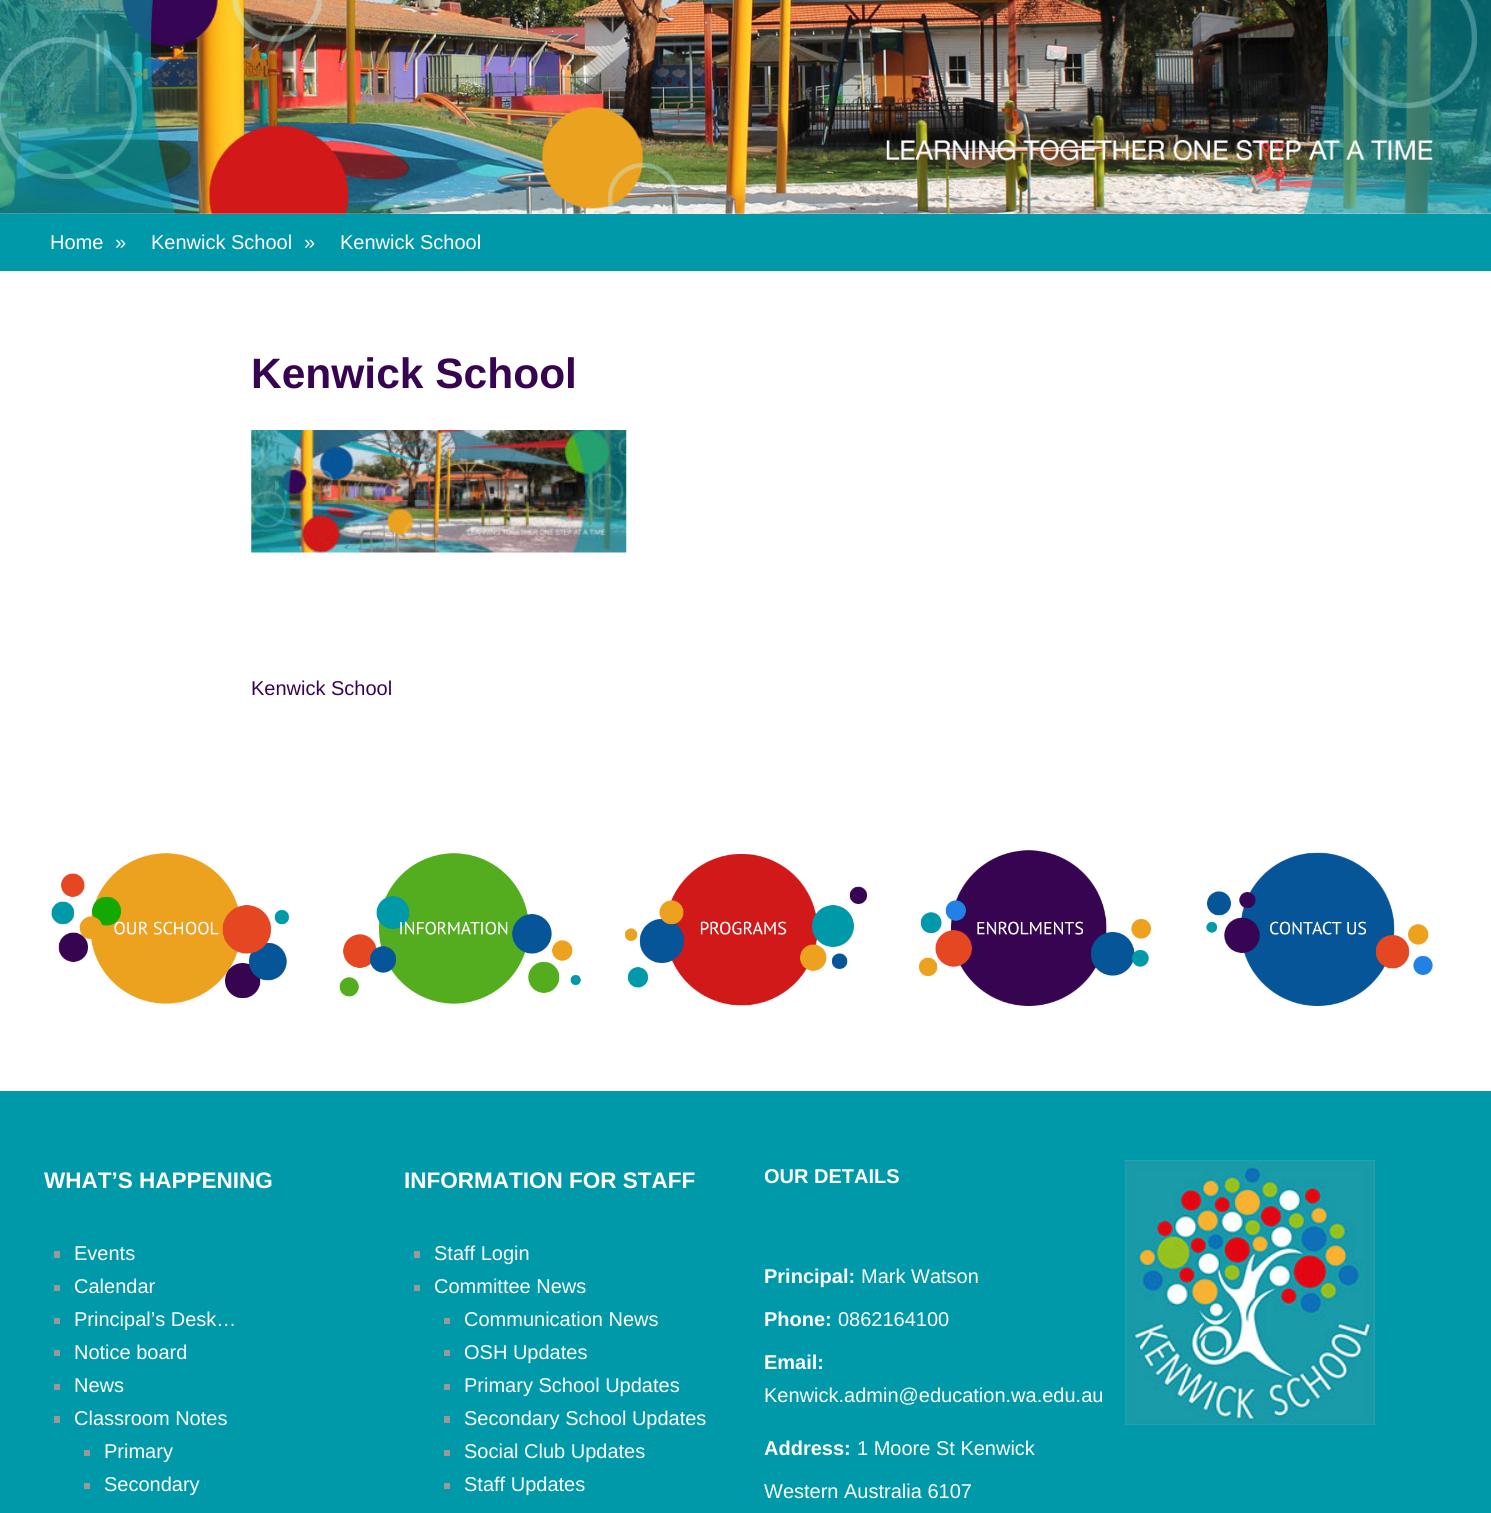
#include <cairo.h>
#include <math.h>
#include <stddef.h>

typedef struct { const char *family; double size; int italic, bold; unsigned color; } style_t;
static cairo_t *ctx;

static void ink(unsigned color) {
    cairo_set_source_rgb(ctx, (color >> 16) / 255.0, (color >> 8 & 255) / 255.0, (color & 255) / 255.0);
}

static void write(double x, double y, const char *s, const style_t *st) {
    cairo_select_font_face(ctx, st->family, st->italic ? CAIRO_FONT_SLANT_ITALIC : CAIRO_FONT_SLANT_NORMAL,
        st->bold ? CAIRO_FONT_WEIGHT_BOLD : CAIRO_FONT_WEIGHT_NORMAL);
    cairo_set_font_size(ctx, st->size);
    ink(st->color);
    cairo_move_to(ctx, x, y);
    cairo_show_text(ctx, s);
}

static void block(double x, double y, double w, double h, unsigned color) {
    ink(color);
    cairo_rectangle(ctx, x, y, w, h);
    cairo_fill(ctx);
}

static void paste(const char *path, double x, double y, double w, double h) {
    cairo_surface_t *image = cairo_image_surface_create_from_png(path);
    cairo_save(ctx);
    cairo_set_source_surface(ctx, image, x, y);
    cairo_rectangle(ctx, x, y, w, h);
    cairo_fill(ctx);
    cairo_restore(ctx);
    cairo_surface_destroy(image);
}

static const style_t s1 = {"Liberation Sans", 20, 0, 0, 0xffffff};
static const style_t s2 = {"Liberation Sans", 42.5, 0, 1, 0x370452};
static const style_t s3 = {"Liberation Sans", 20, 0, 0, 0x370452};
static const style_t s4 = {"Liberation Sans", 22.5, 0, 1, 0xffffff};
static const style_t s5 = {"Liberation Sans", 20, 0, 1, 0xffffff};

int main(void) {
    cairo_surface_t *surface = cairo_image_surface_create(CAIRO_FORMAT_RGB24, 1491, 1513);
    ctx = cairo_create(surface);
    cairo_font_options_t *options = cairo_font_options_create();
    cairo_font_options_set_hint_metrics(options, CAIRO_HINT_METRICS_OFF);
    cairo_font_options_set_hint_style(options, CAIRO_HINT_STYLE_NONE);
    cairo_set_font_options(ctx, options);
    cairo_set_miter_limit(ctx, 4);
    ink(0xffffff);
    cairo_paint(ctx);
    paste("pic1.png", 0, 0, 1491, 214);
    block(0, 214, 1491, 57, 0x0099a9);
    write(50, 249, "Home", &s1);
    write(115, 249, "»", &s1);
    write(151, 249, "Kenwick School", &s1);
    write(304, 249, "»", &s1);
    write(340, 249, "Kenwick School", &s1);
    write(251, 388, "Kenwick School", &s2);
    paste("pic2.png", 251, 430, 376, 123);
    write(251, 695, "Kenwick School", &s3);
    paste("pic3.png", 51, 853, 238, 151);
    paste("pic4.png", 339, 853, 242, 151);
    paste("pic5.png", 625, 854, 242, 152);
    paste("pic6.png", 919, 850, 232, 156);
    paste("pic7.png", 1206, 852, 227, 154);
    block(0, 1091, 1491, 422, 0x0099a9);
    write(44, 1188, "WHAT’S HAPPENING", &s4);
    block(54, 1251, 6, 7, 0x999999);
    write(74, 1260, "Events", &s1);
    block(54, 1285, 6, 6, 0x999999);
    write(74, 1293, "Calendar", &s1);
    block(54, 1318, 6, 6, 0x999999);
    write(74, 1326, "Principal’s Desk…", &s1);
    block(54, 1350, 6, 6, 0x999999);
    write(74, 1359, "Notice board", &s1);
    block(54, 1384, 6, 6, 0x999999);
    write(74, 1392, "News", &s1);
    block(54, 1416, 6, 7, 0x999999);
    write(74, 1425, "Classroom Notes", &s1);
    block(84, 1450, 6, 6, 0x999999);
    write(104, 1458, "Primary", &s1);
    block(84, 1483, 6, 6, 0x999999);
    write(104, 1491, "Secondary", &s1);
    write(404, 1188, "INFORMATION FOR STAFF", &s4);
    block(414, 1251, 6, 7, 0x999999);
    write(434, 1260, "Staff Login", &s1);
    block(414, 1285, 6, 6, 0x999999);
    write(434, 1293, "Committee News", &s1);
    block(444, 1318, 6, 6, 0x999999);
    write(464, 1326, "Communication News", &s1);
    block(444, 1350, 6, 6, 0x999999);
    write(464, 1359, "OSH Updates", &s1);
    block(444, 1384, 6, 6, 0x999999);
    write(464, 1392, "Primary School Updates", &s1);
    block(444, 1416, 6, 7, 0x999999);
    write(464, 1425, "Secondary School Updates", &s1);
    block(444, 1450, 6, 6, 0x999999);
    write(464, 1458, "Social Club Updates", &s1);
    block(444, 1483, 6, 6, 0x999999);
    write(464, 1491, "Staff Updates", &s1);
    write(764, 1183, "OUR DETAILS", &s5);
    write(764, 1283, "Principal:", &s5);
    write(861, 1283, "Mark Watson", &s1);
    write(764, 1326, "Phone:", &s5);
    write(838, 1326, "0862164100", &s1);
    write(764, 1369, "Email:", &s5);
    write(764, 1402, "Kenwick.admin@education.wa.edu.au", &s1);
    write(764, 1455, "Address:", &s5);
    write(857, 1455, "1 Moore St Kenwick", &s1);
    write(764, 1498, "Western Australia 6107", &s1);
    paste("pic8.png", 1125, 1160, 250, 265);
    cairo_surface_write_to_png(surface, "screenshot.png");
    cairo_font_options_destroy(options);
    cairo_destroy(ctx);
    cairo_surface_destroy(surface);
    return 0;
}
